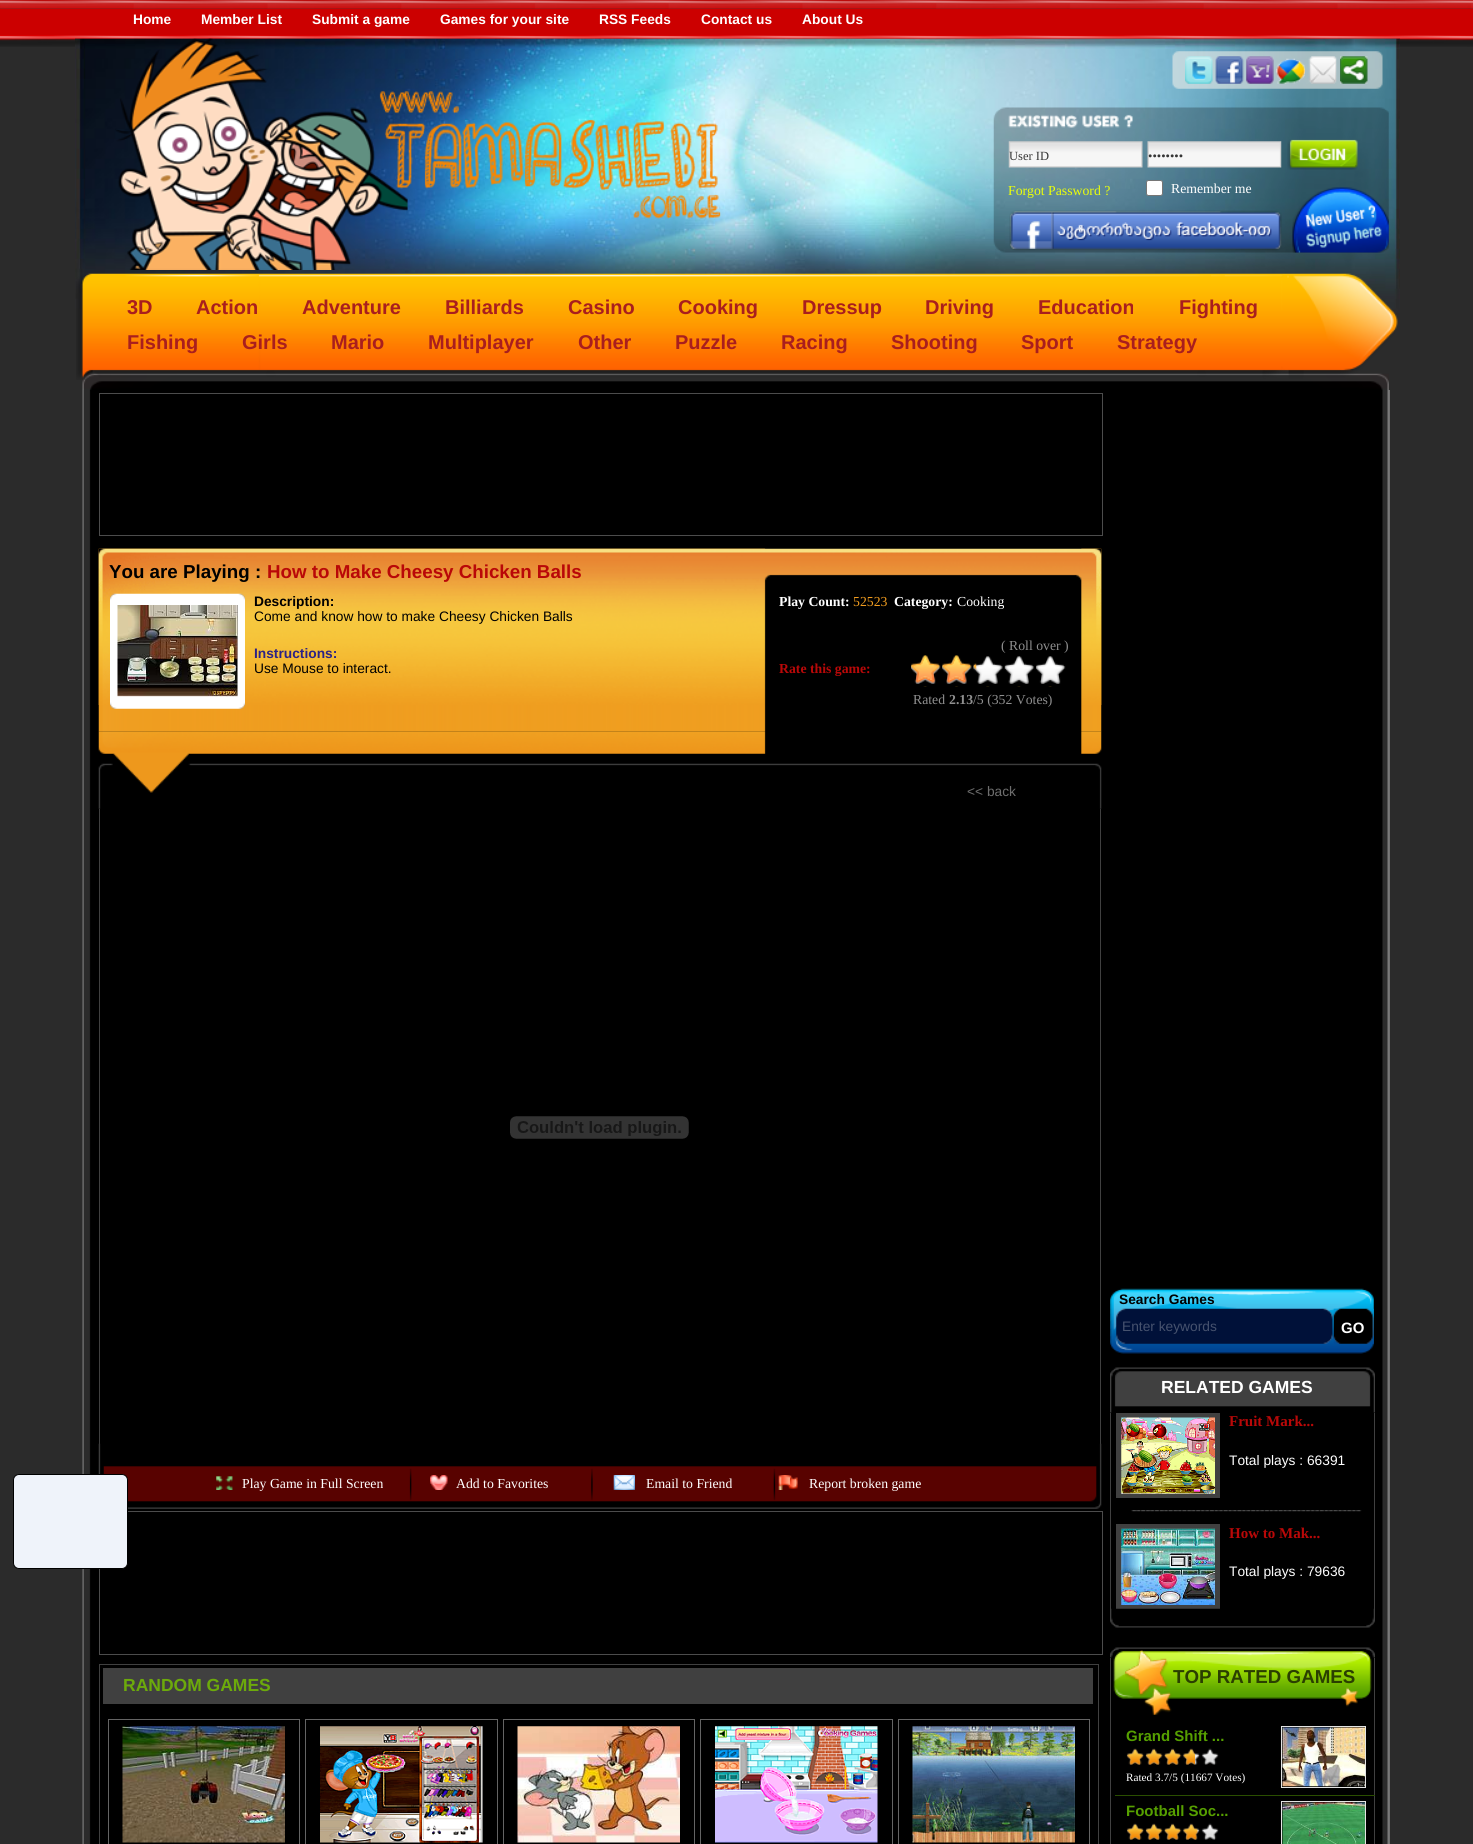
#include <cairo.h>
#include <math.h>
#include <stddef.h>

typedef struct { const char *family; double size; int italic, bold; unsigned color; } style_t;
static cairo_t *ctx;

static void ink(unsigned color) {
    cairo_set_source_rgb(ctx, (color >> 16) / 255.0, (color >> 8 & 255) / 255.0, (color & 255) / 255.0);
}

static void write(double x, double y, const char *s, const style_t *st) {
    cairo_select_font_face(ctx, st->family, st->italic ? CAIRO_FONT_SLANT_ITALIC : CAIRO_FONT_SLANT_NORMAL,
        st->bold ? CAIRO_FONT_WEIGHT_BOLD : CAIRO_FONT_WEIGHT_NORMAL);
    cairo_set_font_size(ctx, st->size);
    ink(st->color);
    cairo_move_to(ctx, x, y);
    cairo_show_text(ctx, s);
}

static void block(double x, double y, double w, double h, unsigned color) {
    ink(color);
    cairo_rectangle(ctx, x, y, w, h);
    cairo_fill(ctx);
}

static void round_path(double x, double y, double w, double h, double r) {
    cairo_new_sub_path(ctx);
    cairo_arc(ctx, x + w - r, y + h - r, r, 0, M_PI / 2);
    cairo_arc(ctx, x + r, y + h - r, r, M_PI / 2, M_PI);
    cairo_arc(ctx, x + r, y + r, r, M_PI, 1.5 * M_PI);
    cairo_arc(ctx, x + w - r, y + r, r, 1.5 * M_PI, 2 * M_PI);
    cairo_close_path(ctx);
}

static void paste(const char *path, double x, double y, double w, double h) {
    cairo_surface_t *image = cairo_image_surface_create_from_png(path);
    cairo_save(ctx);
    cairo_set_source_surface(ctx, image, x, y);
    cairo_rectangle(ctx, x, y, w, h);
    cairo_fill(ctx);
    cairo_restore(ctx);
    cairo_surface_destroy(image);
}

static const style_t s1 = {"Liberation Sans", 13.75, 0, 1, 0xffffff};
static const style_t s2 = {"Liberation Serif", 12.5, 0, 0, 0x363636};
static const style_t s3 = {"Liberation Serif", 13.75, 0, 0, 0xebff0a};
static const style_t s4 = {"Liberation Serif", 13.75, 0, 0, 0xffffff};
static const style_t s5 = {"Liberation Sans", 20, 0, 1, 0xa91e1e};
static const style_t s6 = {"Liberation Sans", 18.75, 0, 1, 0x000000};
static const style_t s7 = {"Liberation Sans", 18.75, 0, 1, 0xb90808};
static const style_t s8 = {"Liberation Sans", 13.75, 0, 1, 0x000000};
static const style_t s9 = {"Liberation Sans", 13.75, 0, 0, 0x000000};
static const style_t s10 = {"Liberation Sans", 13.75, 0, 1, 0x2b2286};
static const style_t s11 = {"Liberation Serif", 13.75, 0, 1, 0xffffff};
static const style_t s12 = {"Liberation Serif", 13.75, 0, 0, 0xf09c1f};
static const style_t s13 = {"Liberation Serif", 13.75, 0, 0, 0x8f8f8f};
static const style_t s14 = {"Liberation Serif", 13.75, 0, 1, 0xb90808};
static const style_t s15 = {"Liberation Serif", 13.75, 0, 1, 0x8f8f8f};
static const style_t s16 = {"Liberation Sans", 13.75, 0, 0, 0x6e6e6e};
static const style_t s17 = {"Liberation Sans", 17.5, 0, 1, 0x6caa0b};
static const style_t s18 = {"Liberation Sans", 13.75, 0, 0, 0x46526e};
static const style_t s19 = {"Liberation Sans", 15, 0, 1, 0xffffff};
static const style_t s20 = {"Liberation Sans", 17.5, 0, 1, 0xffffff};
static const style_t s21 = {"Liberation Serif", 15, 0, 1, 0xb90808};
static const style_t s22 = {"Liberation Sans", 13.75, 0, 0, 0xffffff};
static const style_t s23 = {"Liberation Sans", 18.75, 0, 1, 0x2a3f00};
static const style_t s24 = {"Liberation Sans", 15, 0, 1, 0x56a000};
static const style_t s25 = {"Liberation Serif", 11.25, 0, 0, 0xffffff};

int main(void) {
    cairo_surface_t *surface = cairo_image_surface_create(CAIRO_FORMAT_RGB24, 1473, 1844);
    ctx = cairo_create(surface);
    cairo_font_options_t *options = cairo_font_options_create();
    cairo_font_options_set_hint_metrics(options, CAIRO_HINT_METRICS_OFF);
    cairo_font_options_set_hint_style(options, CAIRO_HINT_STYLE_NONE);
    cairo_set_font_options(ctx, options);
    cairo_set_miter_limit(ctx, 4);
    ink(0x2b2b2b);
    cairo_paint(ctx);
    paste("pic1.png", 0, 0, 1473, 9);
    block(0, 9, 1473, 26, 0xcc0000);
    write(133, 24, "Home", &s1);
    write(201, 24, "Member List", &s1);
    write(312, 24, "Submit a game", &s1);
    write(440, 24, "Games for your site", &s1);
    write(599, 24, "RSS Feeds", &s1);
    write(701, 24, "Contact us", &s1);
    write(802, 24, "About Us", &s1);
    paste("pic2.png", 0, 35, 1473, 12);
    paste("pic23.png", 82, 390, 1308, 1454);
    block(1100, 809, 1, 635, 0x404040);
    block(99, 809, 1, 635, 0x404040);
    paste("pic33.png", 98, 1443, 1004, 66);
    cairo_rectangle(ctx, 99.5, 1511.5, 1003, 143);
    ink(0x4c4c4c);
    cairo_set_line_width(ctx, 1);
    cairo_stroke(ctx);
    ink(0xeff3fa);
    round_path(13.5, 1474.5, 114, 94, 5.5);
    cairo_fill_preserve(ctx);
    ink(0x000000);
    cairo_stroke(ctx);
    paste("pic3.png", 75, 38, 1325, 275);
    paste("pic4.png", 115, 38, 606, 232);
    paste("pic5.png", 221, 126, 16, 16);
    paste("pic6.png", 172, 137, 16, 16);
    paste("pic7.png", 1172, 51, 211, 38);
    paste("pic8.png", 1185, 56, 28, 28);
    paste("pic9.png", 1215, 56, 29, 28);
    paste("pic10.png", 1246, 56, 28, 28);
    paste("pic11.png", 1276, 58, 29, 26);
    paste("pic12.png", 1308, 56, 29, 28);
    paste("pic13.png", 1340, 56, 28, 28);
    paste("pic14.png", 993, 107, 396, 146);
    paste("pic15.png", 1008, 114, 125, 14);
    paste("pic16.png", 1008, 141, 135, 27);
    write(1009, 160, "User ID", &s2);
    paste("pic17.png", 1147, 141, 135, 27);
    write(1148, 160, "••••••••", &s2);
    paste("pic18.png", 1287, 139, 71, 31);
    write(1008, 195, "Forgot Password ?", &s3);
    ink(0xffffff);
    round_path(1146.5, 180.5, 16, 15, 2);
    cairo_fill_preserve(ctx);
    ink(0x767676);
    cairo_stroke(ctx);
    write(1171, 193, "Remember me", &s4);
    paste("pic19.png", 1009, 210, 273, 41);
    paste("pic20.png", 1292, 187, 97, 66);
    paste("pic22.png", 82, 373, 1307, 17);
    paste("pic21.png", 76, 273, 1322, 107);
    write(127, 314, "3D", &s5);
    write(196, 314, "Action", &s5);
    write(302, 314, "Adventure", &s5);
    write(445, 314, "Billiards", &s5);
    write(568, 314, "Casino", &s5);
    write(678, 314, "Cooking", &s5);
    write(802, 314, "Dressup", &s5);
    write(925, 314, "Driving", &s5);
    write(1038, 314, "Education", &s5);
    write(1179, 314, "Fighting", &s5);
    write(127, 349, "Fishing", &s5);
    write(242, 349, "Girls", &s5);
    write(331, 349, "Mario", &s5);
    write(428, 349, "Multiplayer", &s5);
    write(578, 349, "Other", &s5);
    write(675, 349, "Puzzle", &s5);
    write(781, 349, "Racing", &s5);
    write(891, 349, "Shooting", &s5);
    write(1021, 349, "Sport", &s5);
    write(1117, 349, "Strategy", &s5);
    cairo_rectangle(ctx, 99.5, 393.5, 1003, 142);
    ink(0x4c4c4c);
    cairo_stroke(ctx);
    paste("pic24.png", 98, 548, 1004, 184);
    paste("pic25.png", 98, 548, 1004, 157);
    write(109, 578, "You are Playing :", &s6);
    write(267, 578, "How to Make Cheesy Chicken Balls", &s7);
    paste("pic26.png", 110, 593, 135, 116);
    paste("pic27.png", 117, 605, 121, 92);
    write(254, 606, "Description:", &s8);
    write(254, 621, "Come and know how to make Cheesy Chicken Balls", &s9);
    write(254, 658, "Instructions:", &s10);
    write(254, 673, "Use Mouse to interact.", &s9);
    write(779, 606, "Play Count:", &s11);
    write(853, 606, "52523", &s12);
    write(894, 606, "Category:", &s11);
    write(957, 606, "Cooking", &s4);
    write(1001, 650, "( Roll over )", &s13);
    write(779, 673, "Rate this game:", &s14);
    paste("pic28.png", 911, 656, 155, 31);
    paste("pic29.png", 911, 656, 155, 31);
    paste("pic30.png", 911, 655, 66, 29);
    write(913, 704, "Rated", &s13);
    write(949, 704, "2.13", &s15);
    write(973, 704, "/5 (352 Votes)", &s13);
    paste("pic31.png", 98, 731, 1004, 78);
    write(967, 796, "<< back", &s16);
    paste("pic32.png", 510, 1116, 179, 23);
    paste("pic34.png", 216, 1476, 17, 14);
    write(242, 1488, "Play Game in Full Screen", &s4);
    paste("pic35.png", 430, 1475, 18, 15);
    write(456, 1488, "Add to Favorites", &s4);
    paste("pic36.png", 613, 1475, 22, 15);
    write(646, 1488, "Email to Friend", &s4);
    paste("pic37.png", 778, 1475, 20, 15);
    write(809, 1488, "Report broken game", &s4);
    cairo_rectangle(ctx, 99.5, 1664.5, 999, 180);
    ink(0x404040);
    cairo_stroke(ctx);
    block(103, 1668, 990, 36, 0x404040);
    write(123, 1691, "RANDOM GAMES", &s17);
    cairo_rectangle(ctx, 108.5, 1719.5, 191, 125);
    ink(0x646464);
    cairo_stroke(ctx);
    paste("pic38.png", 122, 1726, 163, 117);
    cairo_rectangle(ctx, 305.5, 1719.5, 192, 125);
    cairo_stroke(ctx);
    paste("pic39.png", 320, 1726, 163, 117);
    cairo_rectangle(ctx, 503.5, 1719.5, 191, 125);
    cairo_stroke(ctx);
    paste("pic40.png", 517, 1726, 163, 117);
    cairo_rectangle(ctx, 700.5, 1719.5, 192, 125);
    cairo_stroke(ctx);
    paste("pic41.png", 715, 1726, 163, 117);
    cairo_rectangle(ctx, 898.5, 1719.5, 191, 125);
    cairo_stroke(ctx);
    paste("pic42.png", 912, 1726, 163, 117);
    paste("pic43.png", 1110, 1288, 264, 66);
    write(1119, 1304, "Search Games", &s8);
    paste("pic44.png", 1116, 1308, 217, 36);
    write(1122, 1331, "Enter keywords", &s18);
    paste("pic45.png", 1333, 1308, 41, 36);
    write(1341, 1333, "GO", &s19);
    paste("pic46.png", 1110, 1367, 265, 46);
    write(1161, 1393, "RELATED GAMES", &s20);
    block(1374, 1413, 1, 196, 0x404040);
    block(1110, 1413, 1, 196, 0x404040);
    block(1116, 1413, 104, 85, 0x404040);
    paste("pic47.png", 1121, 1417, 94, 77);
    write(1229, 1426, "Fruit Mark...", &s21);
    write(1229, 1465, "Total plays : 66391", &s22);
    paste("pic48.png", 1131, 1510, 231, 2);
    block(1116, 1524, 104, 85, 0x404040);
    paste("pic49.png", 1121, 1528, 94, 77);
    write(1229, 1538, "How to Mak...", &s21);
    write(1229, 1576, "Total plays : 79636", &s22);
    paste("pic50.png", 1110, 1608, 265, 20);
    paste("pic51.png", 1110, 1647, 265, 11);
    block(1374, 1658, 1, 186, 0x404040);
    block(1110, 1658, 1, 186, 0x404040);
    paste("pic53.png", 1113, 1651, 259, 48);
    write(1173, 1683, "TOP RATED GAMES", &s23);
    paste("pic52.png", 1125, 1650, 233, 65);
    block(1115, 1795, 260, 1, 0x2a4e00);
    write(1126, 1741, "Grand Shift ...", &s24);
    paste("pic54.png", 1126, 1748, 93, 17);
    paste("pic55.png", 1127, 1749, 68, 16);
    write(1126, 1781, "Rated 3.7/5 (11667 Votes)", &s25);
    cairo_rectangle(ctx, 1281.5, 1726.5, 84, 61);
    ink(0xe4e4e3);
    cairo_stroke(ctx);
    paste("pic56.png", 1282, 1727, 83, 60);
    write(1126, 1816, "Football Soc...", &s24);
    paste("pic57.png", 1126, 1823, 93, 17);
    paste("pic58.png", 1127, 1824, 71, 16);
    cairo_rectangle(ctx, 1281.5, 1801.5, 84, 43);
    ink(0xe4e4e3);
    cairo_stroke(ctx);
    paste("pic59.png", 1282, 1802, 83, 42);
    cairo_surface_write_to_png(surface, "screenshot.png");
    cairo_font_options_destroy(options);
    cairo_destroy(ctx);
    cairo_surface_destroy(surface);
    return 0;
}
